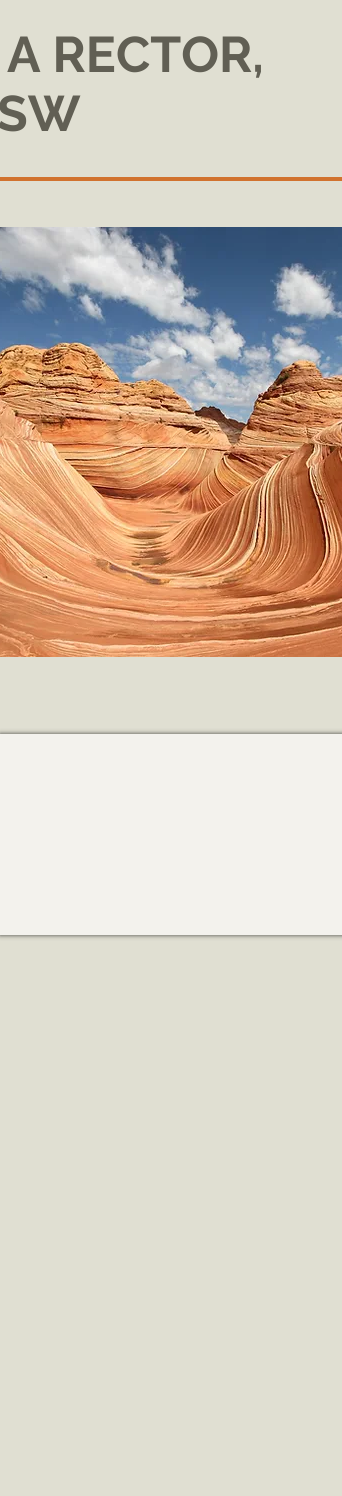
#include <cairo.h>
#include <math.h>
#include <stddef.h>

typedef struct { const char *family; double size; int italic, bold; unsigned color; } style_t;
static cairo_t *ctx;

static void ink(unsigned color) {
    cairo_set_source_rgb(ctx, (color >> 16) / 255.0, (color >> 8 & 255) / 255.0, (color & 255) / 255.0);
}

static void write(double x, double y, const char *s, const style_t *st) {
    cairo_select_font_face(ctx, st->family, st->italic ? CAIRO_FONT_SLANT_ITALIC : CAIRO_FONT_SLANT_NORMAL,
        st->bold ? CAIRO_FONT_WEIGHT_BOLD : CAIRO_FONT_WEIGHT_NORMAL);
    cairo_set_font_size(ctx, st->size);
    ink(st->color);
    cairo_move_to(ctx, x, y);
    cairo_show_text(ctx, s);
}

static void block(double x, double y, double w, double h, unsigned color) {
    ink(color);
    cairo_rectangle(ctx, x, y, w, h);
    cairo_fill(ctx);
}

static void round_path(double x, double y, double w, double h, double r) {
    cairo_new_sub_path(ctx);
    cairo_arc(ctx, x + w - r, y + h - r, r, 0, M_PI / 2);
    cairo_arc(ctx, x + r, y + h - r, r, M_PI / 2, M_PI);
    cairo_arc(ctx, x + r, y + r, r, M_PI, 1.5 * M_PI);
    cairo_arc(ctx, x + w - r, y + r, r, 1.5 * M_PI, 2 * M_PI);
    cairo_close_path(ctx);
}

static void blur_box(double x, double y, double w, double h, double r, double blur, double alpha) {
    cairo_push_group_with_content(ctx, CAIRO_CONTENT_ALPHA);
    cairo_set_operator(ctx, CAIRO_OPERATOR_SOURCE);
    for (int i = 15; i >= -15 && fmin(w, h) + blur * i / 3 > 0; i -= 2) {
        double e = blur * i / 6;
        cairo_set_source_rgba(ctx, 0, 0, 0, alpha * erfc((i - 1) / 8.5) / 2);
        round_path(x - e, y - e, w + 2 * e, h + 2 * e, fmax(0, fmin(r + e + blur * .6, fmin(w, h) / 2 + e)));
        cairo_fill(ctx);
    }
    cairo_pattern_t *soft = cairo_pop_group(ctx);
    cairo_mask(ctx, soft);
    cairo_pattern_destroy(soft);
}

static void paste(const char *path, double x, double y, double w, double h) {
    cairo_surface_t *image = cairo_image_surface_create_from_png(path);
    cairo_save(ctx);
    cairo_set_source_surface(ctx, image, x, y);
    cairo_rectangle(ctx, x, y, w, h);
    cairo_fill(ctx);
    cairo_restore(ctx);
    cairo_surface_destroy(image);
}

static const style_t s1 = {"Raleway", 50, 0, 1, 0x615f54};

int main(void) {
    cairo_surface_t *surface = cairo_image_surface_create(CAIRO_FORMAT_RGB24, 342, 1496);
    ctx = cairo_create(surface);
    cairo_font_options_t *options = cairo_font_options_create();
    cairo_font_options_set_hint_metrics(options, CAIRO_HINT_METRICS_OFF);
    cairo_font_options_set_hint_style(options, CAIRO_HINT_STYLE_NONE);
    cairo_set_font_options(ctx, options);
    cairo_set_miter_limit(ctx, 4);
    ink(0xe0dfd2);
    cairo_paint(ctx);
    write(7, 72, "A RECTOR,", &s1);
    write(-3, 131, "SW", &s1);
    block(0, 177, 342, 4, 0xd1722e);
    paste("pic1.png", 0, 227, 342, 430);
    ink(0x000000);
    blur_box(0, 734, 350, 201, 0, 2.5, 0.7);
    block(0, 734, 342, 201, 0xf3f2ed);
    cairo_surface_write_to_png(surface, "screenshot.png");
    cairo_font_options_destroy(options);
    cairo_destroy(ctx);
    cairo_surface_destroy(surface);
    return 0;
}
